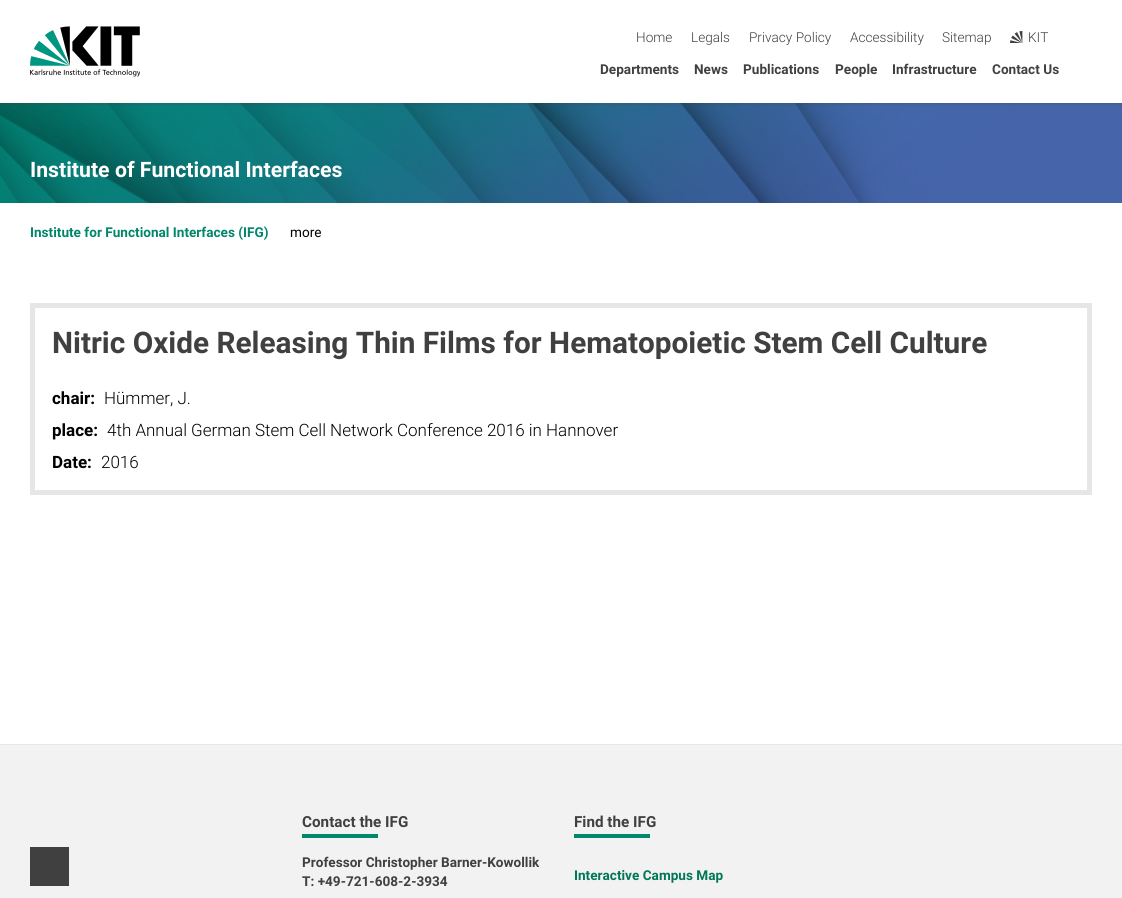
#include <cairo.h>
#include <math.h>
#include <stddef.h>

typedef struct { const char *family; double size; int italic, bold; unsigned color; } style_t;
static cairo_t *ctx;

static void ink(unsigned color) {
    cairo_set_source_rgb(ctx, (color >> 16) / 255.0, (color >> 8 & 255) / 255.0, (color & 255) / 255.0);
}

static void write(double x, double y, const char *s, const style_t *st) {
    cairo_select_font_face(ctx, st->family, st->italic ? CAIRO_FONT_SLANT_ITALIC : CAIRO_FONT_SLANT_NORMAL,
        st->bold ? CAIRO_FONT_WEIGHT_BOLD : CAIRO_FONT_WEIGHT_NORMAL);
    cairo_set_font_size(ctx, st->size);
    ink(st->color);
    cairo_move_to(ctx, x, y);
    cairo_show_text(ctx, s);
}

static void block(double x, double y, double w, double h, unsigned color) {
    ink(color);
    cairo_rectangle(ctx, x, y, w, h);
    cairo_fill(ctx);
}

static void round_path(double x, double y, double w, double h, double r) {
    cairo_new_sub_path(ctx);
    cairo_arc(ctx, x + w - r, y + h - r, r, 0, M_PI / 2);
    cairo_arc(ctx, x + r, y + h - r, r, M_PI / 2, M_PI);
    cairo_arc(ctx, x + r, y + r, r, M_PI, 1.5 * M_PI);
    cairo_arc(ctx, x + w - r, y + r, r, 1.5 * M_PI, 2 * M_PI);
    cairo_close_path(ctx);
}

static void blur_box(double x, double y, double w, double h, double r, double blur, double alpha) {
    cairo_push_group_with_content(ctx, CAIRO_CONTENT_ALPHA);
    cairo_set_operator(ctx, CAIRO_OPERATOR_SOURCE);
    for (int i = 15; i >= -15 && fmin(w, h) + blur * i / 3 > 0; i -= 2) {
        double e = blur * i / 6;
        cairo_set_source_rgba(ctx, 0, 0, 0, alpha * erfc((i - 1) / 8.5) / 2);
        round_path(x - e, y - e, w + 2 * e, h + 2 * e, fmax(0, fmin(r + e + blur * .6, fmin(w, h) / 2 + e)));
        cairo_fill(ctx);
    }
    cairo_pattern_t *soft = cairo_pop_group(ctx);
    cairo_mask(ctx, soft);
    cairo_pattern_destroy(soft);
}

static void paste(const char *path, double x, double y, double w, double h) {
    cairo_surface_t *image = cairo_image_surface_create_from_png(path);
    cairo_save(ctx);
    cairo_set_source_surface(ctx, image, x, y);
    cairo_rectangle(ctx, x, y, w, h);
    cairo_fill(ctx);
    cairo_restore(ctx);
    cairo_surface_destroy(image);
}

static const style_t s1 = {"Roboto Light", 13.6, 0, 0, 0x404040};
static const style_t s2 = {"Roboto", 13.6, 0, 1, 0x404040};
static const style_t s3 = {"Roboto", 21.25, 0, 1, 0xffffff};
static const style_t s4 = {"Roboto", 13.6, 0, 1, 0x00876c};
static const style_t s5 = {"Roboto", 13.6, 0, 0, 0x000000};
static const style_t s6 = {"Roboto", 29.75, 0, 1, 0x404040};
static const style_t s7 = {"Roboto", 17, 0, 1, 0x000000};
static const style_t s8 = {"Roboto Light", 17, 0, 0, 0x000000};
static const style_t s9 = {"Roboto", 15.25, 0, 1, 0x404040};
static const style_t s10 = {"Roboto", 13.6, 0, 1, 0x007755};

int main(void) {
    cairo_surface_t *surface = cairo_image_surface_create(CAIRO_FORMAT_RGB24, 1122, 898);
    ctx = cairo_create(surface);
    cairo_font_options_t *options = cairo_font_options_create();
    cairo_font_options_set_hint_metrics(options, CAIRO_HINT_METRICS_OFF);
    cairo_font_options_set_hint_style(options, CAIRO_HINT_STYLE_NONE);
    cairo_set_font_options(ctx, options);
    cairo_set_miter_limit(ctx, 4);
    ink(0xffffff);
    cairo_paint(ctx);
    paste("pic3.png", 0, 103, 1122, 100);
    cairo_save(ctx);
    cairo_rectangle(ctx, 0, 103, 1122, 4);
    cairo_clip(ctx);
    ink(0x404040);
    blur_box(0, 0, 1122, 103, 0, 2.5, 0.5);
    cairo_restore(ctx);
    paste("pic1.png", 30, 26, 110, 51);
    write(636, 42, "Home", &s1);
    write(691, 42, "Legals", &s1);
    write(749, 42, "Privacy Policy", &s1);
    write(850, 42, "Accessibility", &s1);
    write(942, 42, "Sitemap", &s1);
    paste("pic2.png", 1010, 31, 13, 12);
    write(1028, 42, "KIT", &s1);
    write(600, 74, "Departments", &s2);
    write(694, 74, "News", &s2);
    write(743, 74, "Publications", &s2);
    write(835, 74, "People", &s2);
    write(892, 74, "Infrastructure", &s2);
    write(992, 74, "Contact Us", &s2);
    write(30, 177, "Institute of Functional Interfaces", &s3);
    write(30, 237, "Institute for Functional Interfaces (IFG)", &s4);
    write(290, 237, "more", &s5);
    cairo_rectangle(ctx, 32.5, 305.5, 1057, 187);
    ink(0xe6e6e6);
    cairo_set_line_width(ctx, 5);
    cairo_stroke(ctx);
    write(52, 353, "Nitric Oxide Releasing Thin Films for Hematopoietic Stem Cell Culture", &s6);
    write(52, 404, "chair:", &s7);
    write(104, 404, "Hümmer, J.", &s8);
    write(52, 436, "place:", &s7);
    write(107, 436, "4th Annual German Stem Cell Network Conference 2016 in Hannover", &s8);
    write(52, 468, "Date:", &s7);
    write(101, 468, "2016", &s8);
    block(0, 745, 1122, 153, 0xf2f2f2);
    block(0, 744, 1122, 1, 0xe6e6e6);
    block(30, 847, 39, 39, 0x404040);
    write(302, 827, "Contact the IFG", &s9);
    block(302, 834, 76, 4, 0x00876c);
    write(302, 867, "Professor Christopher Barner-Kowollik", &s2);
    write(302, 886, "T: +49-721-608-2-3934", &s2);
    write(574, 827, "Find the IFG", &s9);
    block(574, 834, 76, 4, 0x00876c);
    write(574, 880, "Interactive Campus Map", &s10);
    cairo_surface_write_to_png(surface, "screenshot.png");
    cairo_font_options_destroy(options);
    cairo_destroy(ctx);
    cairo_surface_destroy(surface);
    return 0;
}
